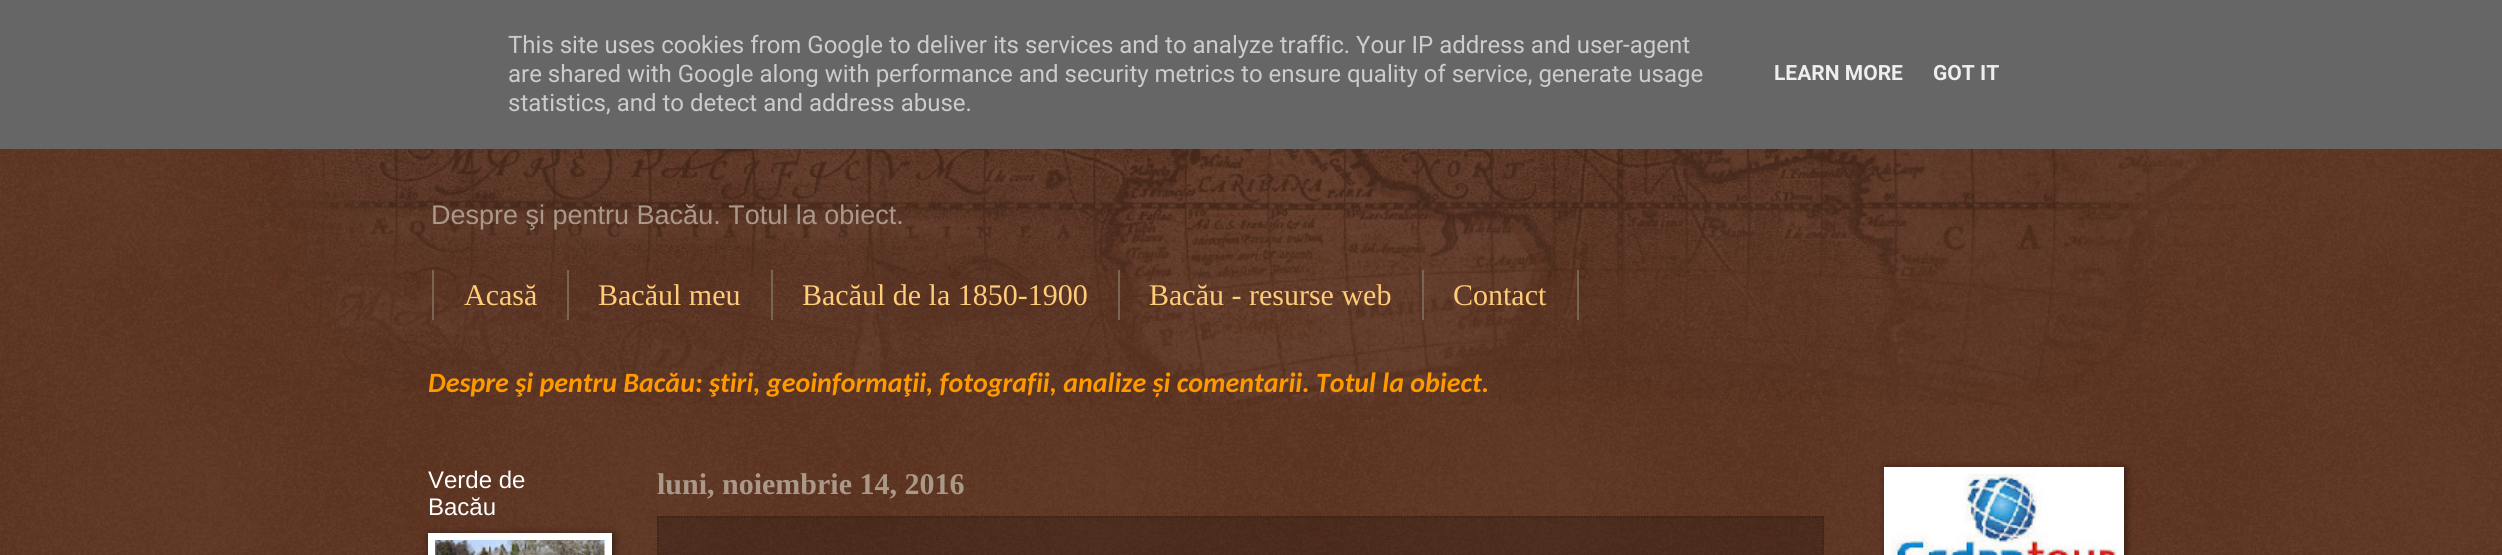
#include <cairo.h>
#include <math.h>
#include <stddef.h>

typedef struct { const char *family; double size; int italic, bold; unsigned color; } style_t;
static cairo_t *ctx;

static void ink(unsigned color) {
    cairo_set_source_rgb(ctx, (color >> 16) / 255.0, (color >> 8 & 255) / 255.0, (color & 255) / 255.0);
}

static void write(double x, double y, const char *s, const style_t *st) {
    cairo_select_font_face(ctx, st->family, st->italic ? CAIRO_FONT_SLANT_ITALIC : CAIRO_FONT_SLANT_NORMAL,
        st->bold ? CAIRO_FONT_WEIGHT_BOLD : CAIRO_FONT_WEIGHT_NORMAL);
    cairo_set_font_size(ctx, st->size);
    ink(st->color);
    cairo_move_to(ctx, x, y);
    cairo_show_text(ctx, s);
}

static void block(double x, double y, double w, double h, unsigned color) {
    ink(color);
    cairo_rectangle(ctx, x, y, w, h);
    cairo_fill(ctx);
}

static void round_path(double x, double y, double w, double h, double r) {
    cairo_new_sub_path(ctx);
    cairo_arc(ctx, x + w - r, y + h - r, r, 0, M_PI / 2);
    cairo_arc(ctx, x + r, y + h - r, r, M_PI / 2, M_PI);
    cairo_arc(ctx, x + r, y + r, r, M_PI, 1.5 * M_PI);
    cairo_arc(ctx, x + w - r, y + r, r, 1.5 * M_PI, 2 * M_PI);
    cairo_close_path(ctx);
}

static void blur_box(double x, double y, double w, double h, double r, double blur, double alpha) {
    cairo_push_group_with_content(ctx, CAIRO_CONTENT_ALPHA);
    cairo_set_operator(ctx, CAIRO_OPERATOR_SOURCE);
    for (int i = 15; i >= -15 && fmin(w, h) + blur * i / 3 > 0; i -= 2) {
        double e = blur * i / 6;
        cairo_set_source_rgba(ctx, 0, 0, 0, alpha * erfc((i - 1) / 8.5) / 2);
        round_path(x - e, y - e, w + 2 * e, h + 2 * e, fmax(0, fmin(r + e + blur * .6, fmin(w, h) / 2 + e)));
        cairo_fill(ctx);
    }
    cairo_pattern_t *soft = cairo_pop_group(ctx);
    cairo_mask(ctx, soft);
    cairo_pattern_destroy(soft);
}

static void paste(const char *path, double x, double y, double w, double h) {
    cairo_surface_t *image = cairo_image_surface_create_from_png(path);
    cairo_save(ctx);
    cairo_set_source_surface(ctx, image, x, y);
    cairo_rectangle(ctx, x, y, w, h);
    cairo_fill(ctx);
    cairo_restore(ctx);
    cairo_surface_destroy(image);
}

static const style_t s1 = {"Roboto", 24, 0, 0, 0xcccccc};
static const style_t s2 = {"Roboto", 21, 0, 1, 0xeeeeee};
static const style_t s3 = {"Liberation Sans", 27, 0, 0, 0xaa9988};
static const style_t s4 = {"Liberation Serif", 30, 0, 0, 0xffcc77};
static const style_t s5 = {"Carlito", 28, 1, 1, 0xff9900};
static const style_t s6 = {"Arimo", 24, 0, 0, 0xffffff};
static const style_t s7 = {"Liberation Serif", 30, 0, 1, 0xaa9988};

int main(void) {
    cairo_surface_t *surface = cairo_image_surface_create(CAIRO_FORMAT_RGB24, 2502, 555);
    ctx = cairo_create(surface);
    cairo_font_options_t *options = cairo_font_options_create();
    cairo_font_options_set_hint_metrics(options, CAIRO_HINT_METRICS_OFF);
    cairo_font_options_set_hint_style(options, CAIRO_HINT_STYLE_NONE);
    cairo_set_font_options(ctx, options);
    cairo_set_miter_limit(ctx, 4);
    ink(0x441500);
    cairo_paint(ctx);
    paste("pic1.png", 0, 149, 2502, 406);
    block(0, 0, 2502, 149, 0x666666);
    write(508, 53, "This site uses cookies from Google to deliver its services and to analyze traffic. Your IP address and user-agent", &s1);
    write(508, 82, "are shared with Google along with performance and security metrics to ensure quality of service, generate usage", &s1);
    write(508, 111, "statistics, and to detect and address abuse.", &s1);
    write(1774, 80, "LEARN MORE", &s2);
    write(1933, 80, "GOT IT", &s2);
    paste("pic2.png", 244, 149, 2012, 256);
    write(431, 224, "Despre şi pentru Bacău. Totul la obiect.", &s3);
    block(567, 270, 2, 50, 0x776655);
    block(432, 270, 2, 50, 0x776655);
    write(464, 305, "Acasă", &s4);
    block(771, 270, 2, 50, 0x776655);
    write(598, 305, "Bacăul meu", &s4);
    block(1118, 270, 2, 50, 0x776655);
    write(802, 305, "Bacăul de la 1850-1900", &s4);
    block(1422, 270, 2, 50, 0x776655);
    write(1149, 305, "Bacău - resurse web", &s4);
    block(1577, 270, 2, 50, 0x776655);
    write(1453, 305, "Contact", &s4);
    write(428, 392, "Despre şi pentru Bacău: ştiri, geoinformaţii, fotografii, analize și comentarii. Totul la obiect.", &s5);
    write(428, 488, "Verde de", &s6);
    write(428, 515, "Bacău", &s6);
    ink(0x000000);
    blur_box(429, 534, 185, 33, 0, 4, 0.5);
    block(428, 533, 184, 22, 0xffffff);
    paste("pic3.png", 435, 540, 170, 15);
    write(657, 494, "luni, noiembrie 14, 2016", &s7);
    cairo_set_source_rgba(ctx, 0, 0, 0, 0.2);
    cairo_rectangle(ctx, 657, 516, 1167, 39);
    cairo_fill(ctx);
    cairo_new_path(ctx);
    cairo_move_to(ctx, 657, 517);
    cairo_line_to(ctx, 1824, 517);
    ink(0x332211);
    cairo_set_line_width(ctx, 1.5);
    cairo_set_dash(ctx, (double[]){1.5, 1.5}, 2, 0);
    cairo_stroke(ctx);
    cairo_new_path(ctx);
    cairo_move_to(ctx, 1823, 516);
    cairo_line_to(ctx, 1823, 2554.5);
    cairo_stroke(ctx);
    cairo_new_path(ctx);
    cairo_move_to(ctx, 658, 516);
    cairo_line_to(ctx, 658, 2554.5);
    cairo_stroke(ctx);
    ink(0x000000);
    blur_box(1886, 468, 240, 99, 0, 4, 0.5);
    block(1884, 467, 240, 88, 0xffffff);
    paste("pic4.png", 1891, 474, 226, 81);
    cairo_surface_write_to_png(surface, "screenshot.png");
    cairo_font_options_destroy(options);
    cairo_destroy(ctx);
    cairo_surface_destroy(surface);
    return 0;
}
